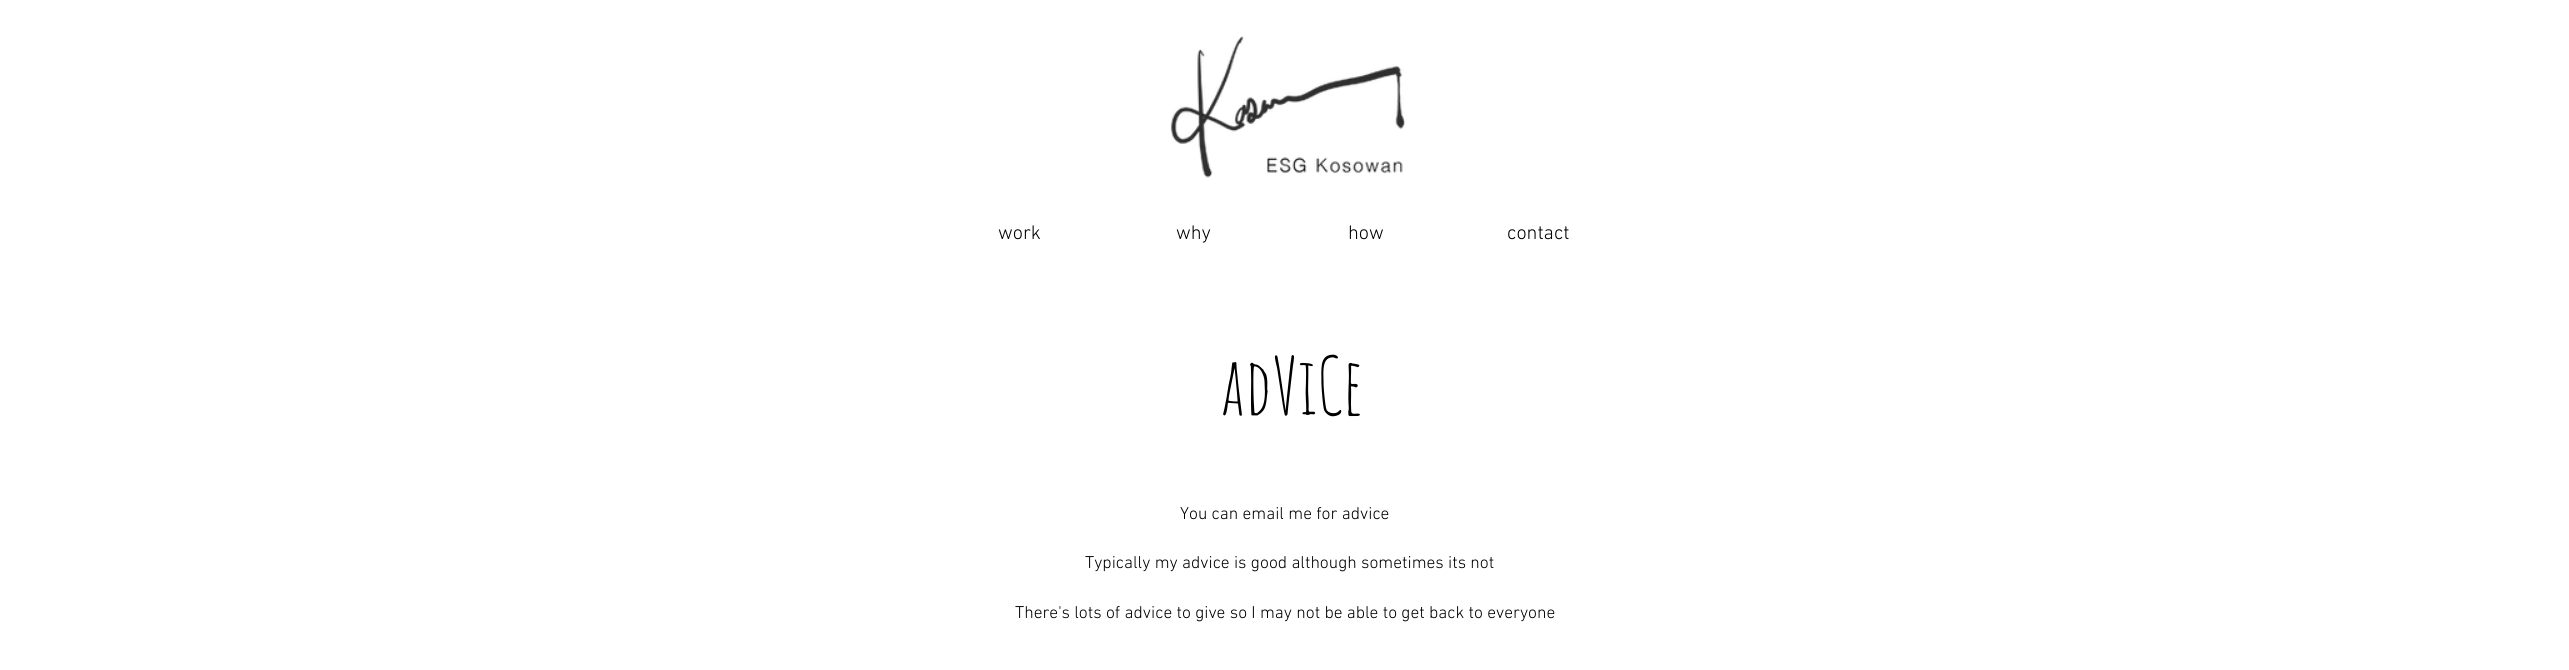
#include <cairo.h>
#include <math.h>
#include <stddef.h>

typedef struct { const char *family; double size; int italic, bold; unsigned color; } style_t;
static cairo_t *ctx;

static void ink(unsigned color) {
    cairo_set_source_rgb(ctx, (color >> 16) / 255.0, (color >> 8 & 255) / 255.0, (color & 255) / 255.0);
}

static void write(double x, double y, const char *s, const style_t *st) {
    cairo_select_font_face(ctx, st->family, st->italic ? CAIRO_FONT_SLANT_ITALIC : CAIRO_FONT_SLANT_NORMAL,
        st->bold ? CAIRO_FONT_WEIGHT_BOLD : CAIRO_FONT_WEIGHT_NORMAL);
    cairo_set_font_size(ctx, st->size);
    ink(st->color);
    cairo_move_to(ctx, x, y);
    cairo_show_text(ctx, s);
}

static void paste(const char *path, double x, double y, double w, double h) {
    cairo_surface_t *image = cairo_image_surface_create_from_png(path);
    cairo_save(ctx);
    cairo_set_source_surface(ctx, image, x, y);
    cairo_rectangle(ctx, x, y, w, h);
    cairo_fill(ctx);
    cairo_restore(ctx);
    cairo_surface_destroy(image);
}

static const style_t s1 = {"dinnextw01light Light", 20, 0, 0, 0x000000};
static const style_t s2 = {"Amatic SC", 79, 0, 0, 0x000000};
static const style_t s3 = {"dinnextw01light Light", 17.5, 0, 0, 0x000000};

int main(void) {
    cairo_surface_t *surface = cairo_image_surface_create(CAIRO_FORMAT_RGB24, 2569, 670);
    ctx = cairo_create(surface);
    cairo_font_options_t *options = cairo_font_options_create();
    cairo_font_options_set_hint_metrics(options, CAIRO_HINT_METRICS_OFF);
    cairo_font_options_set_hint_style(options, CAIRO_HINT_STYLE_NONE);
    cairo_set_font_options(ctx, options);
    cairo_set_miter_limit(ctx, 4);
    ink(0xffffff);
    cairo_paint(ctx);
    paste("pic1.png", 1170, 36, 236, 142);
    write(998, 239, "work", &s1);
    write(1176, 239, "why", &s1);
    write(1348, 239, "how", &s1);
    write(1507, 239, "contact", &s1);
    write(1220, 415, "adViCe", &s2);
    write(1180, 519, "You can email me for advice", &s3);
    write(1085, 568, "Typically my advice is good although sometimes its not", &s3);
    write(1015, 618, "There's lots of advice to give so I may not be able to get back to everyone", &s3);
    cairo_surface_write_to_png(surface, "screenshot.png");
    cairo_font_options_destroy(options);
    cairo_destroy(ctx);
    cairo_surface_destroy(surface);
    return 0;
}
